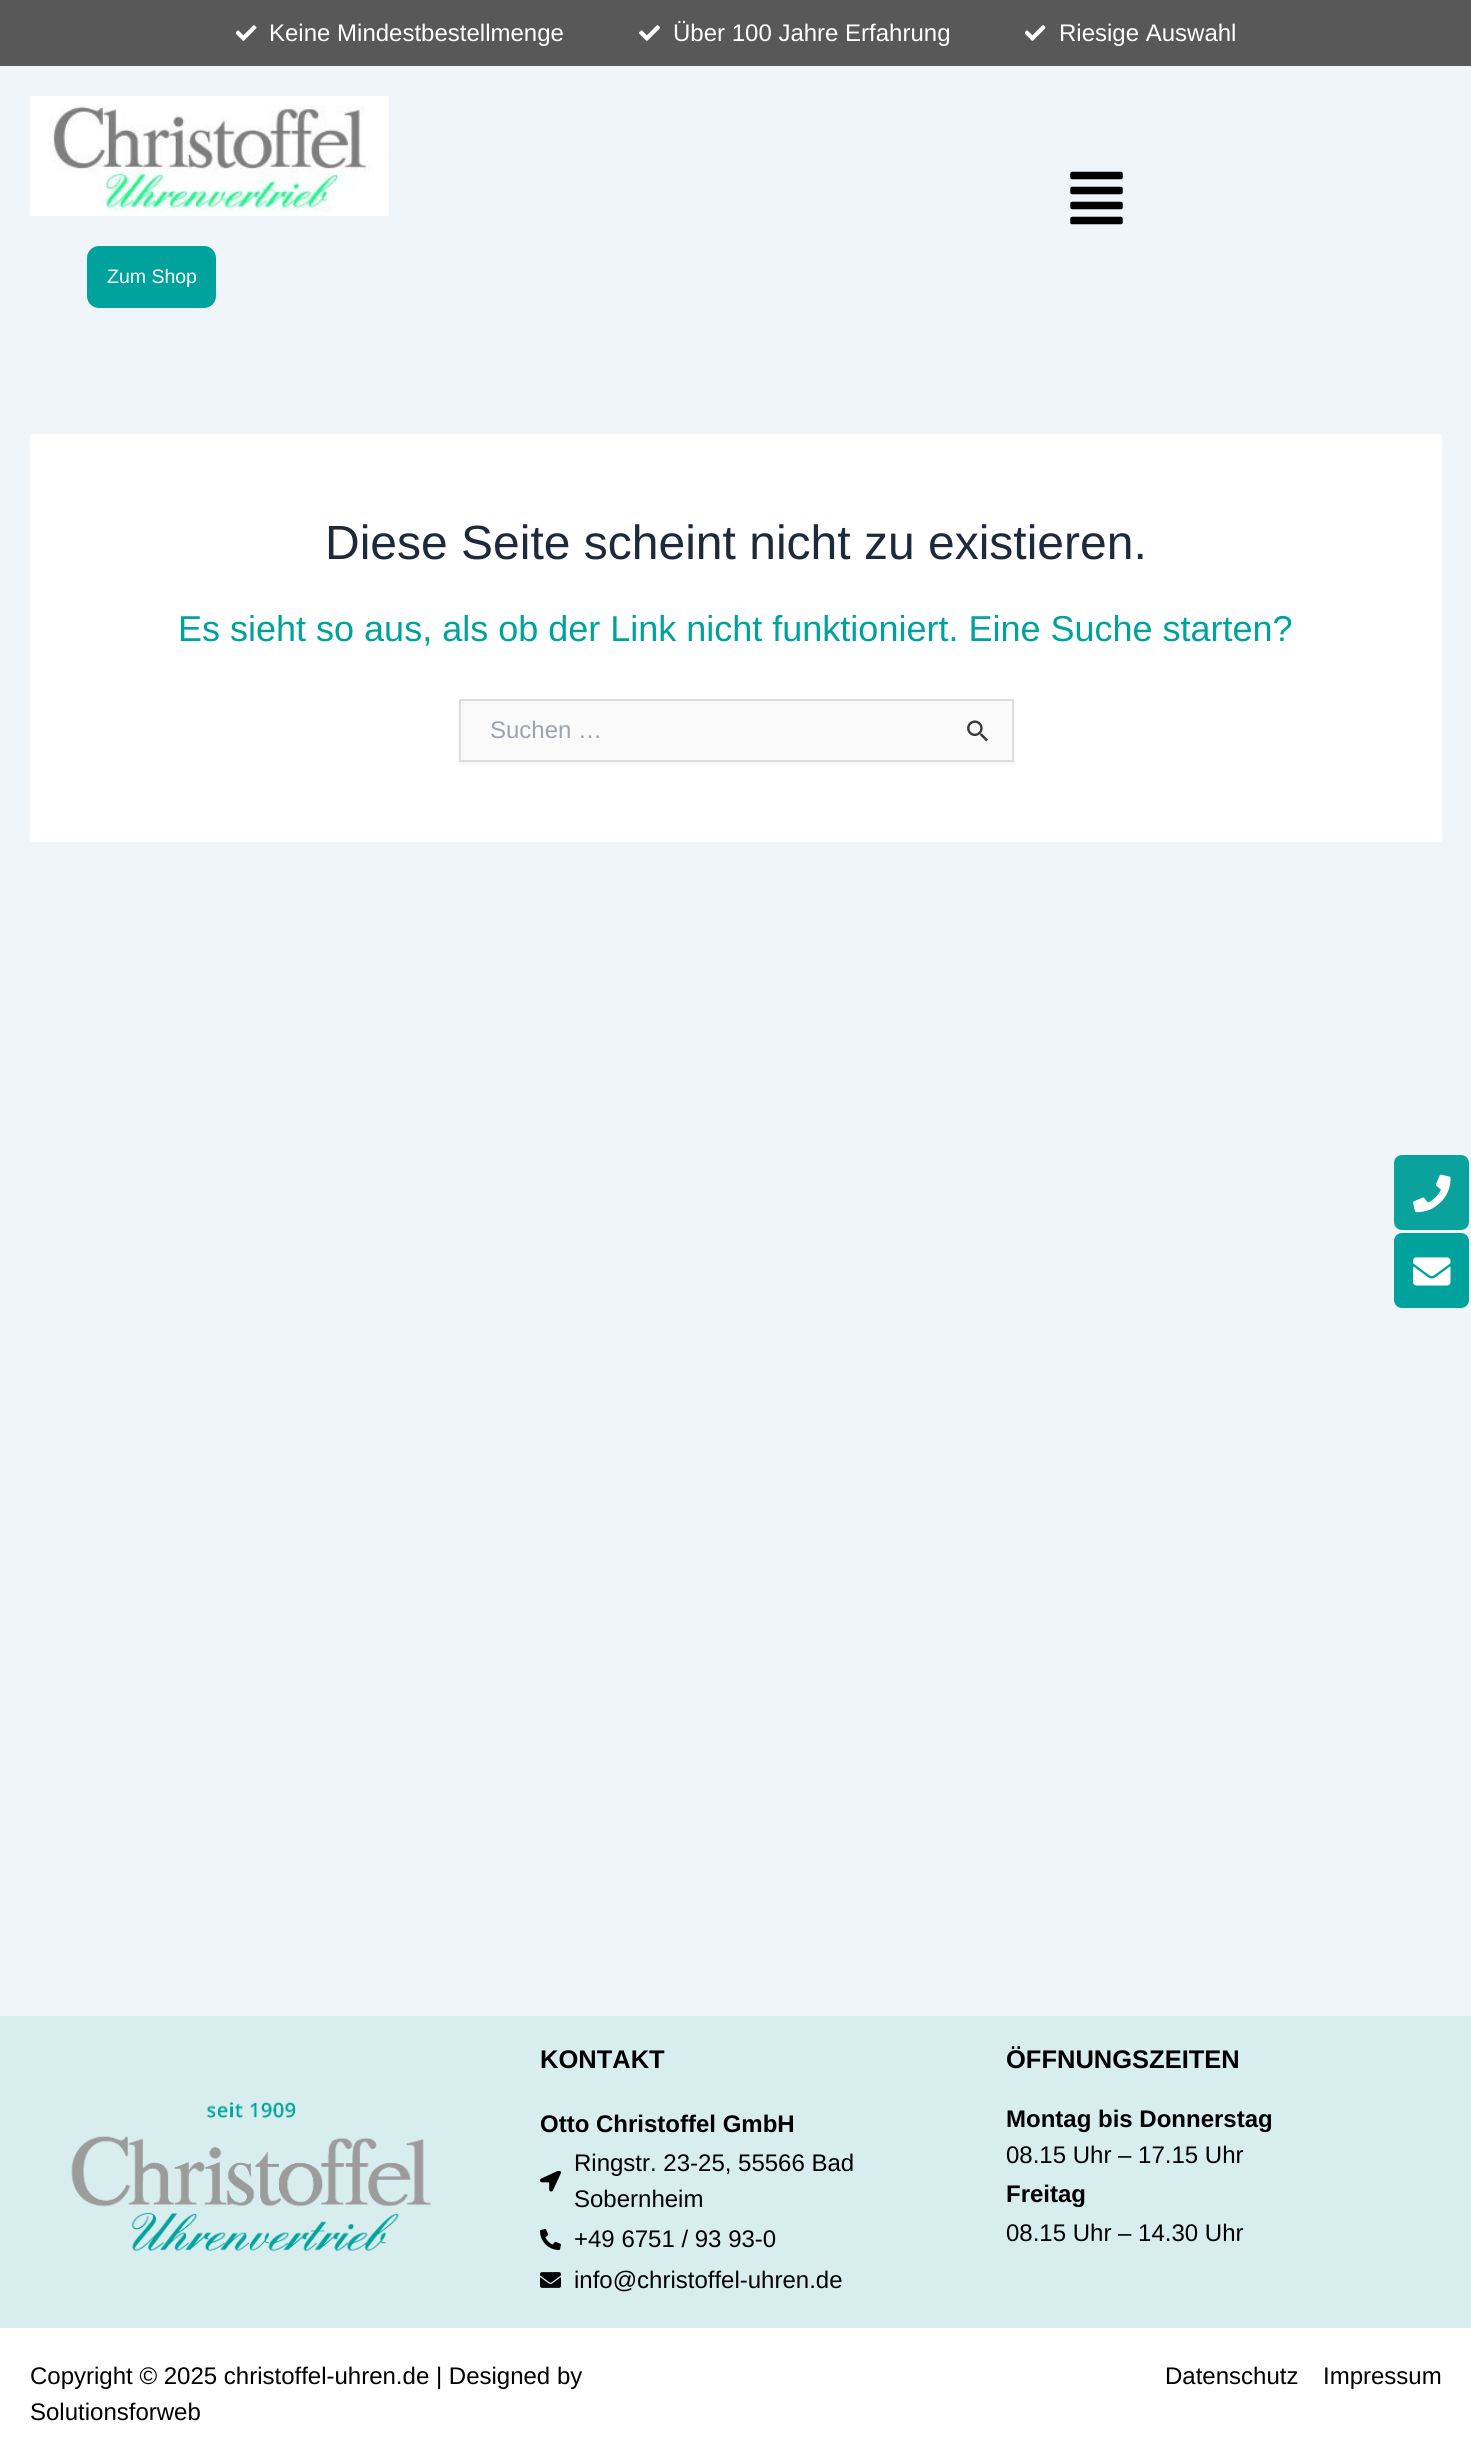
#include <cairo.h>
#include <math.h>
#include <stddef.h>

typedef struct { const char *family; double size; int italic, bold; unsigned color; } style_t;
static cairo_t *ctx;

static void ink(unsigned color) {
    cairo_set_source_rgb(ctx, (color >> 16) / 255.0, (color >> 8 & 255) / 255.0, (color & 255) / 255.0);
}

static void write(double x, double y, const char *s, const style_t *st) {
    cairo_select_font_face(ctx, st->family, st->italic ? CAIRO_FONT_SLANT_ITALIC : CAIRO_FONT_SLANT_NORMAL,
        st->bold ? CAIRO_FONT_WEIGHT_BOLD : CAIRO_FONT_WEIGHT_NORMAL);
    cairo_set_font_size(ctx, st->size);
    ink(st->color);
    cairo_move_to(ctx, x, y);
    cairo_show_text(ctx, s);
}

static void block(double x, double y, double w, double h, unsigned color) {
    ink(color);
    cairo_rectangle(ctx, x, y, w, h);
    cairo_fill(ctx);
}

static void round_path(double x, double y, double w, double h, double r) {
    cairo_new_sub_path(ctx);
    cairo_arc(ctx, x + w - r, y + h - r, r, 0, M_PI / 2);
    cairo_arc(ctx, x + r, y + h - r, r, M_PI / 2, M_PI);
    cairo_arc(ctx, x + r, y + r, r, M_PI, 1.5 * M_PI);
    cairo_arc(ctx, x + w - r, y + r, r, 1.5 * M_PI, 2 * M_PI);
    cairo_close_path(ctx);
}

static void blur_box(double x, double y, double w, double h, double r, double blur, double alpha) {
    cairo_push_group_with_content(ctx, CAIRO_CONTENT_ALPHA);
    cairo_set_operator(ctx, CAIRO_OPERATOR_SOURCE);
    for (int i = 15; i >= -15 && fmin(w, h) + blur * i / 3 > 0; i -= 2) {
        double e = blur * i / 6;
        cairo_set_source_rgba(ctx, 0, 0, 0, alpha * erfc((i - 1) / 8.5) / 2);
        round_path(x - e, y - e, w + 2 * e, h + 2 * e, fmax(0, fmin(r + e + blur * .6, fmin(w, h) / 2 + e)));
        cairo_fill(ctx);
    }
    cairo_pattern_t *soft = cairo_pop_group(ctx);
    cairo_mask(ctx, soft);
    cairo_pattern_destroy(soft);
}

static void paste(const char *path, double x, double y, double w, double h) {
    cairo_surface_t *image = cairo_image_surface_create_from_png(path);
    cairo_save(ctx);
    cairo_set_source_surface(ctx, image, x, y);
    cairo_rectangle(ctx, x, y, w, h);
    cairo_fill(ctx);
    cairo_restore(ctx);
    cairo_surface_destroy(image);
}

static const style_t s1 = {"Liberation Sans", 24, 0, 0, 0xffffff};
static const style_t s2 = {"Liberation Sans", 19.5, 0, 0, 0xffffff};
static const style_t s3 = {"Liberation Sans", 48, 0, 0, 0x1e293b};
static const style_t s4 = {"Liberation Sans", 36, 0, 0, 0x00a29d};
static const style_t s5 = {"Liberation Sans", 24, 0, 0, 0x9ca3af};
static const style_t s6 = {"Liberation Sans", 25.5, 0, 1, 0x000000};
static const style_t s7 = {"Liberation Sans", 24, 0, 1, 0x000000};
static const style_t s8 = {"Liberation Sans", 24, 0, 0, 0x000000};

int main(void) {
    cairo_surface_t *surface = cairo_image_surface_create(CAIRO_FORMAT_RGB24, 1471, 2460);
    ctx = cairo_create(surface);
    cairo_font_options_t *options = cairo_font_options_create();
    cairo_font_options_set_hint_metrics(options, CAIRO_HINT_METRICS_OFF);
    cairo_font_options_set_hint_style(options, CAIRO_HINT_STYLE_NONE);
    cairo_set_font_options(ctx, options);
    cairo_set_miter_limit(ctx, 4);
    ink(0xf0f5fa);
    cairo_paint(ctx);
    block(0, 0, 1471, 66, 0x585858);
    paste("pic1.png", 236, 25, 21, 16);
    write(269, 41, "Keine Mindestbestellmenge", &s1);
    paste("pic2.png", 639, 25, 21, 16);
    write(673, 41, "Über 100 Jahre Erfahrung", &s1);
    paste("pic1.png", 1025, 25, 21, 16);
    write(1059, 41, "Riesige Auswahl", &s1);
    paste("pic3.png", 1070, 171, 53, 54);
    paste("pic4.png", 30, 96, 359, 120);
    ink(0x00a29d);
    round_path(87, 246, 129, 62, 12);
    cairo_fill(ctx);
    write(107, 283, "Zum Shop", &s2);
    block(30, 434, 1412, 408, 0xffffff);
    write(325, 559, "Diese Seite scheint nicht zu existieren.", &s3);
    write(178, 641, "Es sieht so aus, als ob der Link nicht funktioniert. Eine Suche starten?", &s4);
    ink(0x000000);
    blur_box(459, 701, 555, 63, 0, 1.5, 0.05);
    ink(0xfafafa);
    cairo_rectangle(ctx, 460, 700, 553, 61);
    cairo_fill_preserve(ctx);
    ink(0xdcdddf);
    cairo_stroke(ctx);
    write(490, 738, "Suchen …", &s5);
    paste("pic5.png", 967, 720, 21, 22);
    block(0, 2016, 1471, 312, 0xd8eded);
    paste("pic6.png", 71, 2102, 361, 149);
    write(540, 2068, "KONTAKT", &s6);
    write(540, 2132, "Otto Christoffel GmbH", &s7);
    paste("pic7.png", 540, 2171, 21, 21);
    write(574, 2171, "Ringstr. 23-25, 55566 Bad", &s8);
    write(574, 2207, "Sobernheim", &s8);
    paste("pic8.png", 540, 2229, 21, 21);
    write(574, 2247, "+49 6751 / 93 93-0", &s8);
    paste("pic9.png", 540, 2272, 21, 16);
    write(574, 2288, "info@christoffel-uhren.de", &s8);
    write(1006, 2068, "ÖFFNUNGSZEITEN", &s6);
    write(1006, 2127, "Montag bis Donnerstag", &s7);
    write(1006, 2163, "08.15 Uhr – 17.15 Uhr", &s8);
    write(1006, 2202, "Freitag", &s7);
    write(1006, 2241, "08.15 Uhr – 14.30 Uhr", &s8);
    block(0, 2328, 1471, 132, 0xffffff);
    write(30, 2384, "Copyright © 2025 christoffel-uhren.de | Designed by", &s8);
    write(30, 2420, "Solutionsforweb", &s8);
    write(1165, 2384, "Datenschutz", &s8);
    write(1323, 2384, "Impressum", &s8);
    ink(0x0aa29d);
    round_path(1394, 1155, 75, 75, 8);
    cairo_fill(ctx);
    paste("pic10.png", 1413, 1174, 38, 39);
    ink(0x00a29d);
    round_path(1394, 1233, 75, 75, 8);
    cairo_fill(ctx);
    paste("pic11.png", 1413, 1257, 38, 29);
    cairo_surface_write_to_png(surface, "screenshot.png");
    cairo_font_options_destroy(options);
    cairo_destroy(ctx);
    cairo_surface_destroy(surface);
    return 0;
}
